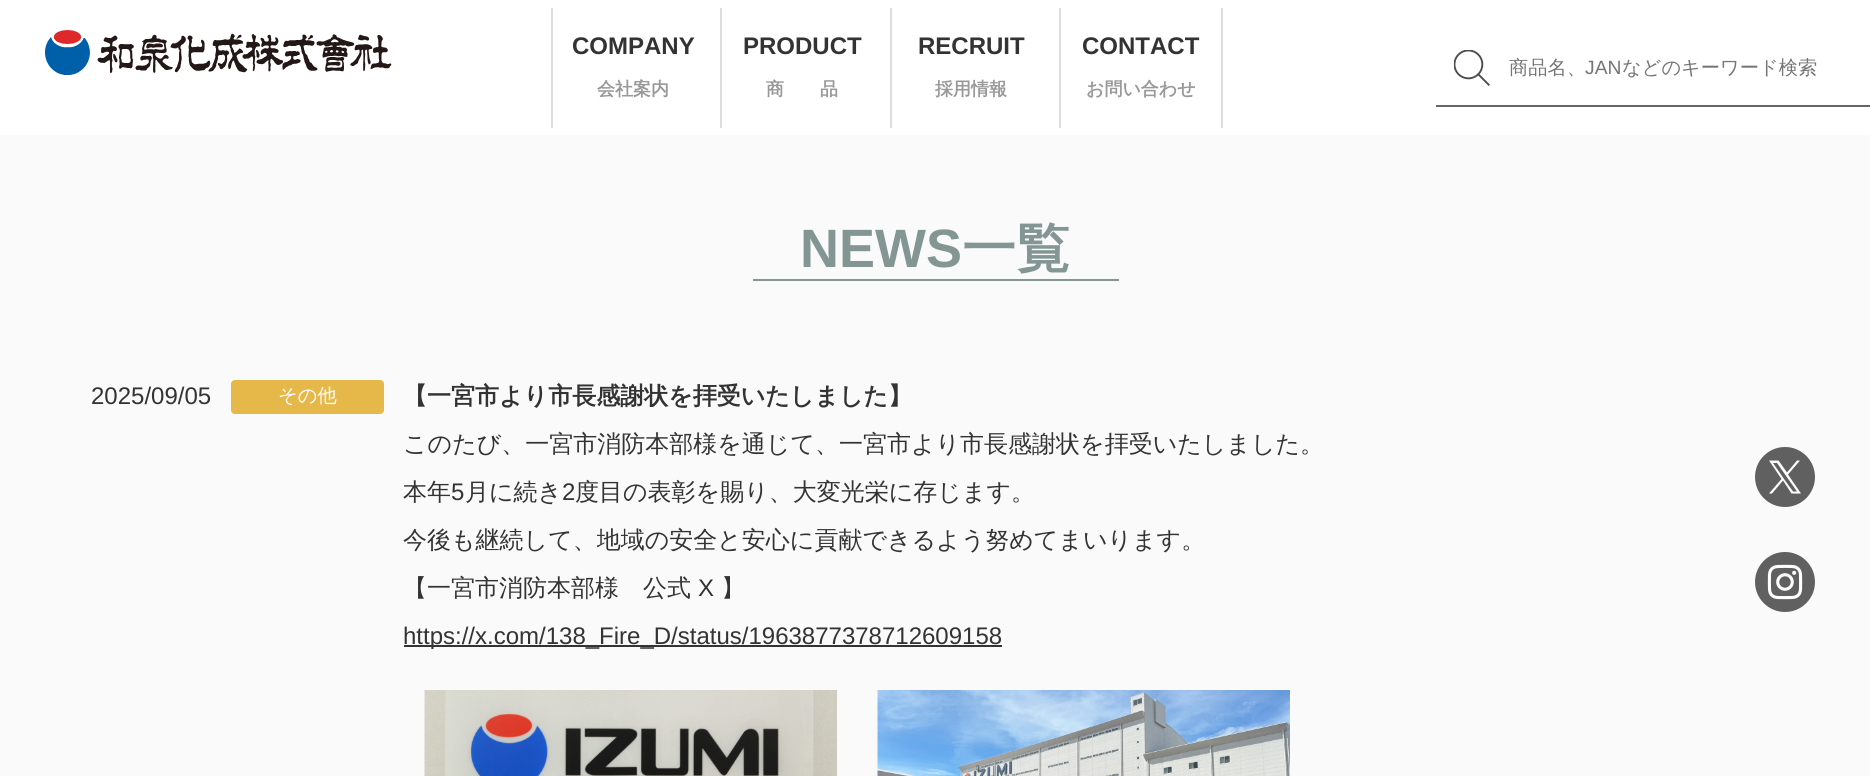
#include <cairo.h>
#include <math.h>
#include <stddef.h>

typedef struct { const char *family; double size; int italic, bold; unsigned color; } style_t;
static cairo_t *ctx;

static void ink(unsigned color) {
    cairo_set_source_rgb(ctx, (color >> 16) / 255.0, (color >> 8 & 255) / 255.0, (color & 255) / 255.0);
}

static void write(double x, double y, const char *s, const style_t *st) {
    cairo_select_font_face(ctx, st->family, st->italic ? CAIRO_FONT_SLANT_ITALIC : CAIRO_FONT_SLANT_NORMAL,
        st->bold ? CAIRO_FONT_WEIGHT_BOLD : CAIRO_FONT_WEIGHT_NORMAL);
    cairo_set_font_size(ctx, st->size);
    ink(st->color);
    cairo_move_to(ctx, x, y);
    cairo_show_text(ctx, s);
}

static void block(double x, double y, double w, double h, unsigned color) {
    ink(color);
    cairo_rectangle(ctx, x, y, w, h);
    cairo_fill(ctx);
}

static void round_path(double x, double y, double w, double h, double r) {
    cairo_new_sub_path(ctx);
    cairo_arc(ctx, x + w - r, y + h - r, r, 0, M_PI / 2);
    cairo_arc(ctx, x + r, y + h - r, r, M_PI / 2, M_PI);
    cairo_arc(ctx, x + r, y + r, r, M_PI, 1.5 * M_PI);
    cairo_arc(ctx, x + w - r, y + r, r, 1.5 * M_PI, 2 * M_PI);
    cairo_close_path(ctx);
}

static void paste(const char *path, double x, double y, double w, double h) {
    cairo_surface_t *image = cairo_image_surface_create_from_png(path);
    cairo_save(ctx);
    cairo_set_source_surface(ctx, image, x, y);
    cairo_rectangle(ctx, x, y, w, h);
    cairo_fill(ctx);
    cairo_restore(ctx);
    cairo_surface_destroy(image);
}

static const style_t s1 = {"Liberation Sans", 24, 0, 1, 0x333333};
static const style_t s2 = {"WenQuanYi Zen Hei", 18, 0, 1, 0x999999};
static const style_t s3 = {"WenQuanYi Zen Hei Medium", 19.25, 0, 0, 0x757575};
static const style_t s4 = {"Liberation Sans", 19.25, 0, 0, 0x757575};
static const style_t s5 = {"Liberation Sans", 54, 0, 1, 0x839694};
static const style_t s6 = {"WenQuanYi Zen Hei", 54, 0, 1, 0x839694};
static const style_t s7 = {"Liberation Sans", 24, 0, 0, 0x333333};
static const style_t s8 = {"WenQuanYi Zen Hei Medium", 19.25, 0, 0, 0xffffff};
static const style_t s9 = {"WenQuanYi Zen Hei", 24, 0, 1, 0x333333};
static const style_t s10 = {"WenQuanYi Zen Hei Medium", 24, 0, 0, 0x333333};

int main(void) {
    cairo_surface_t *surface = cairo_image_surface_create(CAIRO_FORMAT_RGB24, 1870, 776);
    ctx = cairo_create(surface);
    cairo_font_options_t *options = cairo_font_options_create();
    cairo_font_options_set_hint_metrics(options, CAIRO_HINT_METRICS_OFF);
    cairo_font_options_set_hint_style(options, CAIRO_HINT_STYLE_NONE);
    cairo_set_font_options(ctx, options);
    cairo_set_miter_limit(ctx, 4);
    ink(0xfafafa);
    cairo_paint(ctx);
    block(0, 0, 1870, 135, 0xffffff);
    paste("pic1.png", 45, 30, 347, 45);
    block(551, 8, 2, 120, 0xdddddd);
    write(572, 54, "COMPANY", &s1);
    write(597, 95, "会社案内", &s2);
    block(720, 8, 2, 120, 0xdddddd);
    write(743, 54, "PRODUCT", &s1);
    write(766, 95, "商　　品", &s2);
    block(890, 8, 2, 120, 0xdddddd);
    write(918, 54, "RECRUIT", &s1);
    write(935, 95, "採用情報", &s2);
    block(1221, 8, 2, 120, 0xdddddd);
    block(1059, 8, 2, 120, 0xdddddd);
    write(1082, 54, "CONTACT", &s1);
    write(1086, 95, "お問い合わせ", &s2);
    block(1436, 105, 434, 2, 0x666666);
    paste("pic2.png", 1454, 50, 36, 36);
    write(1509, 74, "商品名、", &s3);
    write(1585, 74, "JAN", &s4);
    write(1622, 74, "などのキーワード検索", &s3);
    write(800, 267, "NEWS", &s5);
    write(962, 267, "一覧", &s6);
    block(753, 279, 366, 2, 0x839694);
    write(91, 404, "2025/09/05", &s7);
    ink(0xe6b84a);
    round_path(231, 380, 153, 34, 4);
    cairo_fill(ctx);
    write(278, 402, "その他", &s8);
    write(403, 404, "【一宮市より市長感謝状を拝受いたしました】", &s9);
    write(403, 452, "このたび、一宮市消防本部様を通じて、一宮市より市長感謝状を拝受いたしました。", &s10);
    write(403, 500, "本年", &s10);
    write(451, 500, "5", &s7);
    write(465, 500, "月に続き", &s10);
    write(562, 500, "2", &s7);
    write(575, 500, "度目の表彰を賜り、大変光栄に存じます。", &s10);
    write(403, 548, "今後も継続して、地域の安全と安心に貢献できるよう努めてまいります。", &s10);
    write(403, 596, "【一宮市消防本部様　公式", &s10);
    write(698, 596, "X", &s7);
    write(721, 596, "】", &s10);
    block(404, 645, 598, 2, 0x333333);
    write(403, 644, "https://x.com/138_Fire_D/status/1963877378712609158", &s7);
    paste("pic3.png", 424, 690, 413, 86);
    paste("pic4.png", 877, 690, 413, 86);
    ink(0x606060);
    cairo_arc(ctx, 1785, 477, 30, 0, 2 * M_PI);
    cairo_fill(ctx);
    ink(0xffffff);
    cairo_new_path(ctx);
    cairo_move_to(ctx, 1788, 474.5);
    cairo_line_to(ctx, 1800, 460.5);
    cairo_line_to(ctx, 1797, 460.5);
    cairo_line_to(ctx, 1787, 472.5);
    cairo_line_to(ctx, 1778.5, 460.5);
    cairo_line_to(ctx, 1769, 460.5);
    cairo_line_to(ctx, 1781.5, 479);
    cairo_line_to(ctx, 1769, 493.5);
    cairo_line_to(ctx, 1772, 493.5);
    cairo_line_to(ctx, 1783, 480.5);
    cairo_line_to(ctx, 1791.5, 493.5);
    cairo_line_to(ctx, 1801, 493.5);
    cairo_close_path(ctx);
    cairo_move_to(ctx, 1784, 479);
    cairo_line_to(ctx, 1773, 463);
    cairo_line_to(ctx, 1777, 463);
    cairo_line_to(ctx, 1797, 491.5);
    cairo_line_to(ctx, 1793, 491.5);
    cairo_close_path(ctx);
    cairo_fill(ctx);
    paste("pic5.png", 1755, 552, 60, 60);
    cairo_surface_write_to_png(surface, "screenshot.png");
    cairo_font_options_destroy(options);
    cairo_destroy(ctx);
    cairo_surface_destroy(surface);
    return 0;
}
